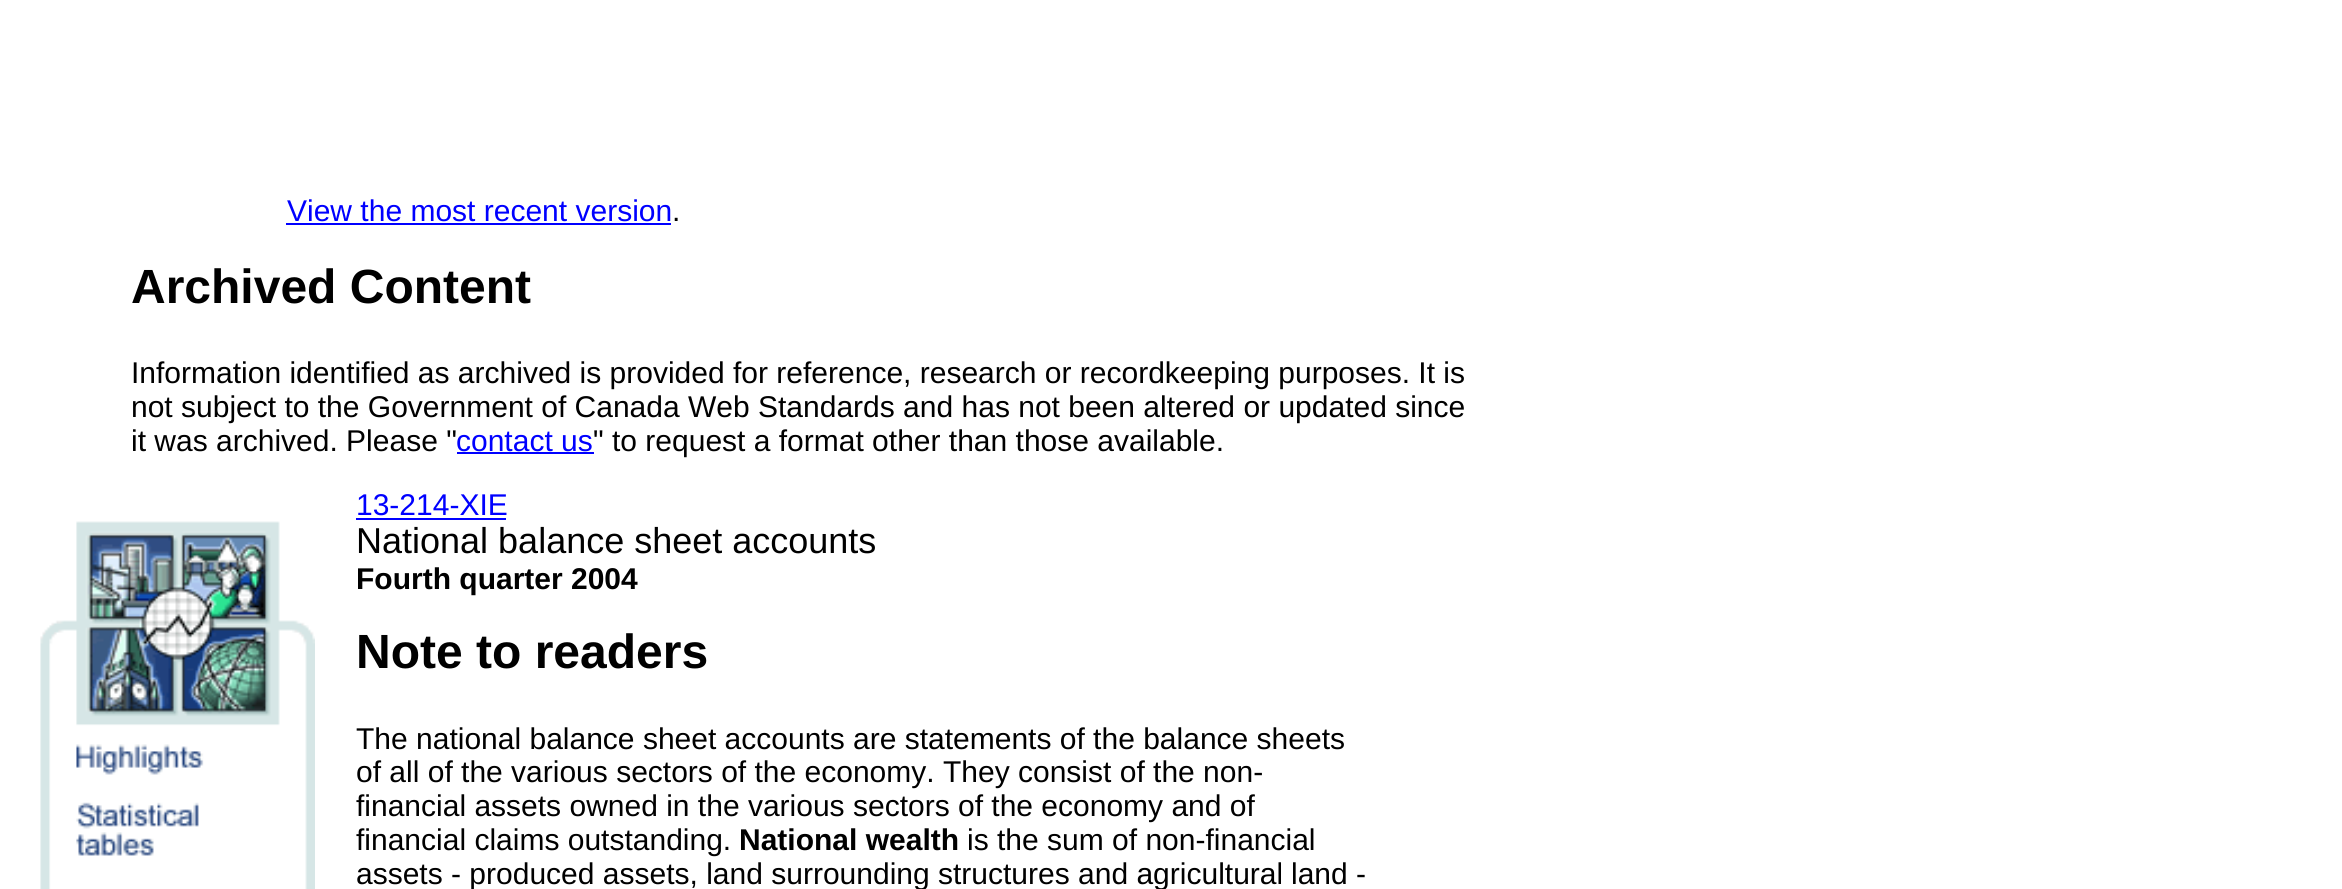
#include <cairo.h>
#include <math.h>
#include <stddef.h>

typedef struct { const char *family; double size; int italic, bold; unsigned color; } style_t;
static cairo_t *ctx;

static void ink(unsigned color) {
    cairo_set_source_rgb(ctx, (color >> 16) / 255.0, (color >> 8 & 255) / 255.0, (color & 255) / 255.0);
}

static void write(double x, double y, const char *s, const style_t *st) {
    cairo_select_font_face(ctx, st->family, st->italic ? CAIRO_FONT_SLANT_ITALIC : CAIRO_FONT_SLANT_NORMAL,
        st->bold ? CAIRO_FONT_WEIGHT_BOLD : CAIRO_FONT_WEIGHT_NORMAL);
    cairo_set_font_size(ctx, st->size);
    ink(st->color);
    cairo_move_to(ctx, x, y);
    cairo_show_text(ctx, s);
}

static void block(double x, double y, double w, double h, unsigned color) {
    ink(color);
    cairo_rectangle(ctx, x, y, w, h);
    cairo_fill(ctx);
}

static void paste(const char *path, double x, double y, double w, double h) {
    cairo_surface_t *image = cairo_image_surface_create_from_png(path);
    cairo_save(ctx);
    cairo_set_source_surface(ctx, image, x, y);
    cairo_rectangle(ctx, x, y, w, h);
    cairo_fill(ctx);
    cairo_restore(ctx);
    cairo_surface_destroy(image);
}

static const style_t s1 = {"Liberation Sans", 30, 0, 0, 0x0000ff};
static const style_t s2 = {"Liberation Sans", 30, 0, 0, 0x000000};
static const style_t s3 = {"Liberation Sans", 48, 0, 1, 0x000000};
static const style_t s4 = {"Liberation Sans", 36, 0, 0, 0x000000};
static const style_t s5 = {"Liberation Sans", 30, 0, 1, 0x000000};

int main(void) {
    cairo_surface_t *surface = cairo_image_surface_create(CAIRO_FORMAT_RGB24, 2342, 889);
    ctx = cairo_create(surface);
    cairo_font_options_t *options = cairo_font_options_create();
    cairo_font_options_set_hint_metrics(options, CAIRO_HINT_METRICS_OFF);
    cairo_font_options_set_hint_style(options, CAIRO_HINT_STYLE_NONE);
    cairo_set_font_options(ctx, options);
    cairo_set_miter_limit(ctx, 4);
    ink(0xffffff);
    cairo_paint(ctx);
    write(287, 221, "View the most recent version", &s1);
    block(286, 223, 385, 2, 0x0000ff);
    write(672, 221, ".", &s2);
    write(131, 303, "Archived Content", &s3);
    write(131, 383, "Information identified as archived is provided for reference, research or recordkeeping purposes. It is", &s2);
    write(131, 417, "not subject to the Government of Canada Web Standards and has not been altered or updated since", &s2);
    write(131, 451, "it was archived. Please \"", &s2);
    write(456, 451, "contact us", &s1);
    block(457, 452, 137, 2, 0x0000ff);
    write(593, 451, "\" to request a format other than those available.", &s2);
    paste("pic1.png", 40, 521, 275, 368);
    write(356, 515, "13-214-XIE", &s1);
    block(356, 518, 150, 2, 0x0000ff);
    write(356, 553, "National balance sheet accounts", &s4);
    write(356, 589, "Fourth quarter 2004", &s5);
    write(356, 668, "Note to readers", &s3);
    write(356, 749, "The national balance sheet accounts are statements of the balance sheets", &s2);
    write(356, 782, "of all of the various sectors of the economy. They consist of the non-", &s2);
    write(356, 816, "financial assets owned in the various sectors of the economy and of", &s2);
    write(356, 850, "financial claims outstanding.", &s2);
    write(739, 850, "National wealth", &s5);
    write(967, 850, "is the sum of non-financial", &s2);
    write(356, 884, "assets - produced assets, land surrounding structures and agricultural", &s2);
    write(1291, 884, "land -", &s2);
    cairo_surface_write_to_png(surface, "screenshot.png");
    cairo_font_options_destroy(options);
    cairo_destroy(ctx);
    cairo_surface_destroy(surface);
    return 0;
}
